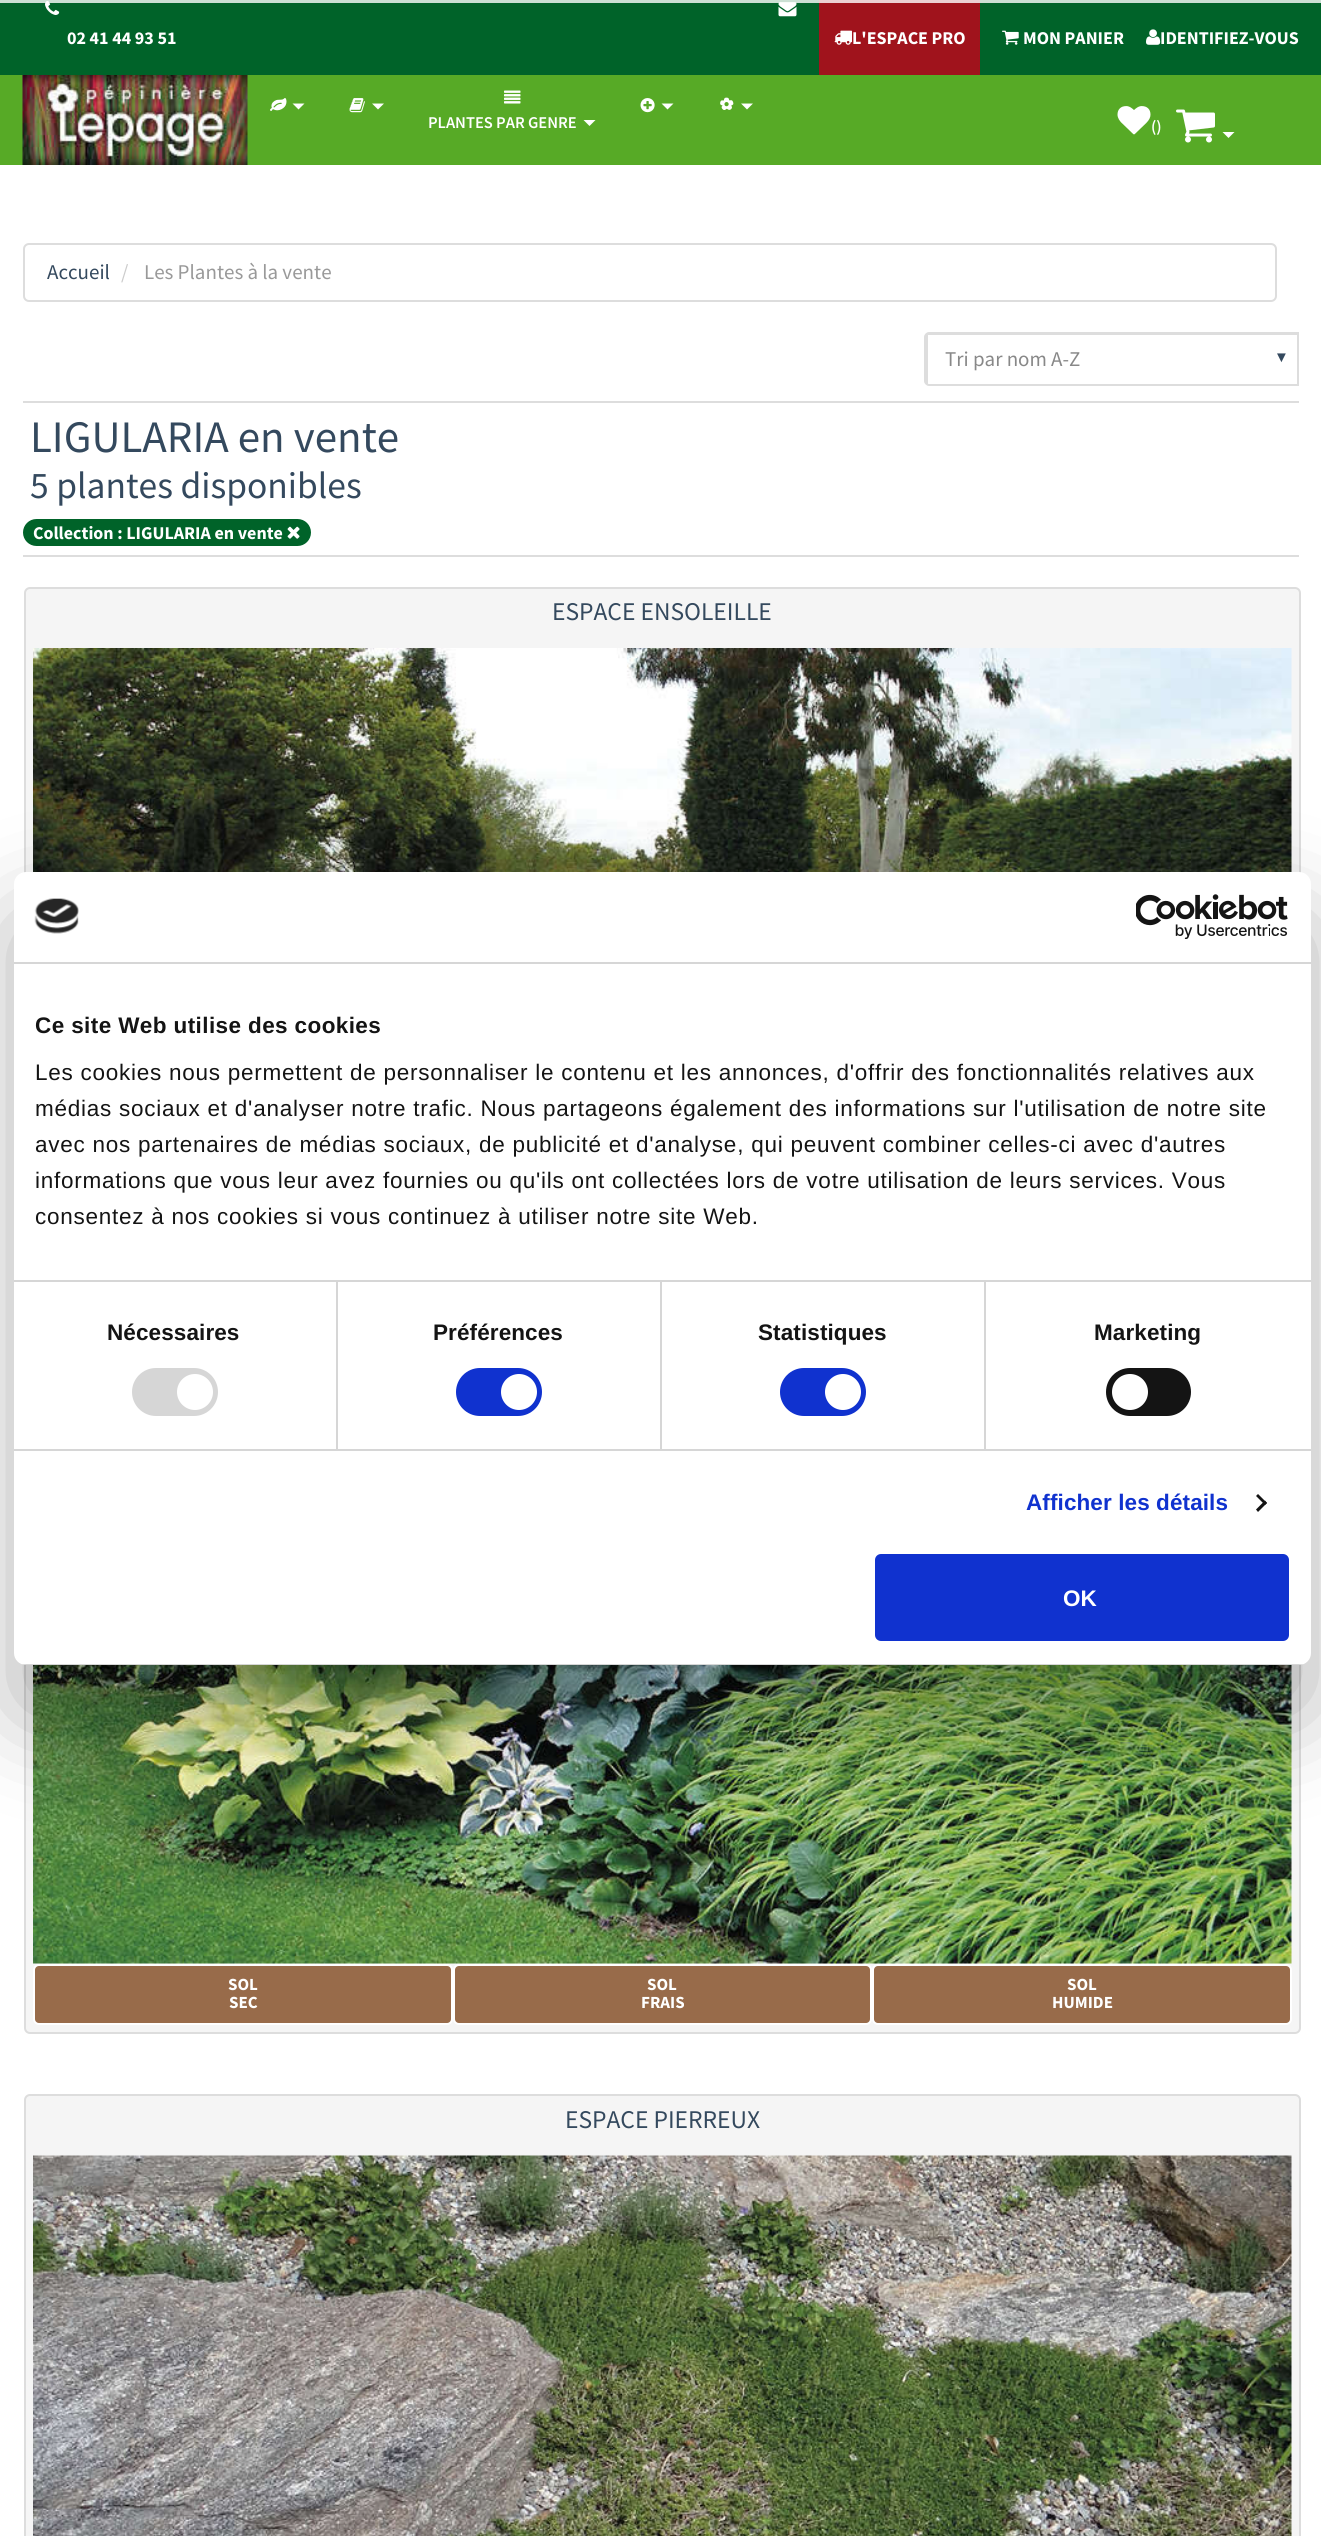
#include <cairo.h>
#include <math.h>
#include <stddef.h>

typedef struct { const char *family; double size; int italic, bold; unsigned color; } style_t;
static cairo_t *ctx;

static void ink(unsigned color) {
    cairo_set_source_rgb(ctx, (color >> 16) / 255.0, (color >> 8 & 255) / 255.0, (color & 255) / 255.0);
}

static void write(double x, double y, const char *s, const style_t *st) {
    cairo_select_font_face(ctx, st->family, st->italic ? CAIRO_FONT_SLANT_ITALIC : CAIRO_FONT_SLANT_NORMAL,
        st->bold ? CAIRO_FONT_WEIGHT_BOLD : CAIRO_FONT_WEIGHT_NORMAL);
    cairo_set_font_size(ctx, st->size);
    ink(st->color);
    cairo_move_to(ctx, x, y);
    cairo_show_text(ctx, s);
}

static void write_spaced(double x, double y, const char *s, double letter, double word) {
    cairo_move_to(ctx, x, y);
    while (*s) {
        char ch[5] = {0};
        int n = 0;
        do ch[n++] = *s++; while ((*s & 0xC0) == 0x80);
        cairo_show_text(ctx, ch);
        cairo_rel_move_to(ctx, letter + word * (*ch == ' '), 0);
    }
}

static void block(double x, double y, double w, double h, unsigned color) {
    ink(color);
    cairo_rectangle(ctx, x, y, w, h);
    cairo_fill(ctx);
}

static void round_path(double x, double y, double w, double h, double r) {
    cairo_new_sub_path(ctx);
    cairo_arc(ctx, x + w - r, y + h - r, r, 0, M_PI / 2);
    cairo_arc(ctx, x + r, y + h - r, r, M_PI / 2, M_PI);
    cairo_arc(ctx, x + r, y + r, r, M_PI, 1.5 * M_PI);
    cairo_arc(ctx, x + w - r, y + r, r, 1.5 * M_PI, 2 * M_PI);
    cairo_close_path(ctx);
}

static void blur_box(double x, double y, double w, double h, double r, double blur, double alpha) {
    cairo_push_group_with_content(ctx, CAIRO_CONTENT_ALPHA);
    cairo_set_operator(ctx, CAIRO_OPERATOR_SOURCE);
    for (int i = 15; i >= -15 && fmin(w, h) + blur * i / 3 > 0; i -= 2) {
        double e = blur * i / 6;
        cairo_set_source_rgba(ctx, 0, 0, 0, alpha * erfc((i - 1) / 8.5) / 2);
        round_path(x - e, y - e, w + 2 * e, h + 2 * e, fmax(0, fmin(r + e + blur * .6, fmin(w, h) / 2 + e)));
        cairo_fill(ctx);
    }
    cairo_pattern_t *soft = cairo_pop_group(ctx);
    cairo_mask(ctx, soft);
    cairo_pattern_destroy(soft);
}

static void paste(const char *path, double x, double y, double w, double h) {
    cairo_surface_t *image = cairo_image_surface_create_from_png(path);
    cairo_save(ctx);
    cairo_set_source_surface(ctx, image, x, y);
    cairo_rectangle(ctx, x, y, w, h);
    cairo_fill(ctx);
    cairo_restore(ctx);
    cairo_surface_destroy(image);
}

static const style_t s1 = {"Source Sans Pro", 18, 0, 1, 0xffffff};
static const style_t s2 = {"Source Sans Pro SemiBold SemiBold", 16.5, 0, 0, 0xffffff};
static const style_t s3 = {"Source Sans Pro", 21, 0, 0, 0x34495e};
static const style_t s4 = {"Source Sans Pro", 21, 0, 0, 0xcccccc};
static const style_t s5 = {"Source Sans Pro", 21, 0, 0, 0x999999};
static const style_t s6 = {"Source Sans Pro", 21, 0, 0, 0x888888};
static const style_t s7 = {"Liberation Sans", 15, 0, 0, 0x34495e};
static const style_t s8 = {"Source Sans Pro", 45, 0, 0, 0x34495e};
static const style_t s9 = {"Source Sans Pro", 37.5, 0, 0, 0x34495e};
static const style_t s10 = {"Source Sans Pro", 25.5, 0, 0, 0x34495e};
static const style_t s11 = {"Source Sans Pro", 17, 0, 1, 0xffffff};
static const style_t s12 = {"Liberation Sans", 22.5, 0, 1, 0xffffff};

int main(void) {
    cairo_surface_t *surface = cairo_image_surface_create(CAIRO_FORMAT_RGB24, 1321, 2536);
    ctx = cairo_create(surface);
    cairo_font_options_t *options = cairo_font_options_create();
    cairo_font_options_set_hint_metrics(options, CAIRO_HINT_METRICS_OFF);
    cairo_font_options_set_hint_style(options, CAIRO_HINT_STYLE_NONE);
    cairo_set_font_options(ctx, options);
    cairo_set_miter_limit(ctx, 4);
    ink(0xffffff);
    cairo_paint(ctx);
    block(0, 0, 1321, 75, 0x006329);
    paste("pic1.png", 45, 0, 15, 15);
    paste("pic2.png", 778, 2, 19, 15);
    block(819, 0, 161, 75, 0xa0131c);
    cairo_set_source_rgba(ctx, 1, 1, 1, 0.8);
    cairo_rectangle(ctx, 0, 0, 1321, 3);
    cairo_fill(ctx);
    block(0, 75, 1321, 90, 0x57aa26);
    write(67, 44, "02 41 44 93 51", &s1);
    paste("pic3.png", 834, 30, 18, 15);
    write(852, 44, "L'ESPACE PRO", &s1);
    paste("pic4.png", 1002, 30, 17, 15);
    write(1023, 44, "MON PANIER", &s1);
    paste("pic5.png", 1146, 29, 15, 16);
    write(1160, 44, "IDENTIFIEZ-VOUS", &s1);
    paste("pic6.png", 22, 75, 226, 90);
    paste("pic7.png", 270, 98, 17, 13);
    cairo_new_path(ctx);
    cairo_move_to(ctx, 292.5, 103.5);
    cairo_line_to(ctx, 304.5, 103.5);
    cairo_line_to(ctx, 298.5, 109.5);
    cairo_close_path(ctx);
    cairo_fill(ctx);
    paste("pic8.png", 349, 98, 16, 15);
    cairo_new_path(ctx);
    cairo_move_to(ctx, 372, 103.5);
    cairo_line_to(ctx, 384, 103.5);
    cairo_line_to(ctx, 378, 109.5);
    cairo_close_path(ctx);
    cairo_fill(ctx);
    paste("pic9.png", 640, 98, 15, 15);
    cairo_new_path(ctx);
    cairo_move_to(ctx, 661.5, 103.5);
    cairo_line_to(ctx, 673.5, 103.5);
    cairo_line_to(ctx, 667.5, 109.5);
    cairo_close_path(ctx);
    cairo_fill(ctx);
    paste("pic10.png", 720, 97, 14, 13);
    cairo_new_path(ctx);
    cairo_move_to(ctx, 741, 103.5);
    cairo_line_to(ctx, 753, 103.5);
    cairo_line_to(ctx, 747, 109.5);
    cairo_close_path(ctx);
    cairo_fill(ctx);
    paste("pic11.png", 504, 90, 17, 14);
    write(428, 128, "PLANTES PAR GENRE", &s2);
    cairo_new_path(ctx);
    cairo_move_to(ctx, 583.5, 120);
    cairo_line_to(ctx, 595.5, 120);
    cairo_line_to(ctx, 589.5, 126);
    cairo_close_path(ctx);
    cairo_fill(ctx);
    paste("pic12.png", 1117, 106, 34, 29);
    write(1151, 132, "()", &s2);
    paste("pic13.png", 1176, 109, 39, 34);
    cairo_new_path(ctx);
    cairo_move_to(ctx, 1222.5, 132);
    cairo_line_to(ctx, 1234.5, 132);
    cairo_line_to(ctx, 1228.5, 138);
    cairo_close_path(ctx);
    cairo_fill(ctx);
    round_path(24, 244, 1252, 57, 5);
    ink(0xdddddd);
    cairo_stroke(ctx);
    write(47, 279, "Accueil", &s3);
    write(121, 279, "/", &s4);
    write(144, 279, "Les Plantes à la vente", &s5);
    cairo_new_path(ctx);
    cairo_move_to(ctx, 929, 333);
    cairo_line_to(ctx, 1298, 333);
    cairo_line_to(ctx, 1298, 385);
    cairo_line_to(ctx, 929, 385);
    cairo_curve_to(ctx, 927, 385, 925, 383, 925, 381);
    cairo_line_to(ctx, 925, 337);
    cairo_curve_to(ctx, 925, 335, 927, 333, 929, 333);
    cairo_close_path(ctx);
    ink(0xdddddd);
    cairo_stroke(ctx);
    block(927, 334, 372, 1, 0xdddddd);
    block(926, 335, 2, 49, 0xdddddd);
    write(945, 366, "Tri par nom A-Z", &s6);
    write(1274, 362, "▼", &s7);
    block(23, 401, 1276, 2, 0xdddddd);
    block(23, 555, 1276, 2, 0xdddddd);
    write(30, 452, "LIGULARIA en vente", &s8);
    write(30, 498, "5 plantes disponibles", &s9);
    ink(0x006329);
    round_path(23, 519, 288, 27, 13.5);
    cairo_fill(ctx);
    write(33, 539, "Collection : LIGULARIA en vente", &s1);
    paste("pic14.png", 287, 526, 13, 13);
    ink(0xf5f5f5);
    round_path(25, 588, 1275, 692, 5);
    cairo_fill_preserve(ctx);
    ink(0xdddddd);
    cairo_stroke(ctx);
    write(552, 620, "ESPACE ENSOLEILLE", &s10);
    paste("pic15.png", 33, 648, 1259, 224);
    ink(0xf5f5f5);
    round_path(25, 1342, 1275, 691, 5);
    cairo_fill_preserve(ctx);
    ink(0xdddddd);
    cairo_stroke(ctx);
    paste("pic16.png", 33, 1665, 1259, 299);
    ink(0x986b4a);
    round_path(34, 1965, 418, 59, 5);
    cairo_fill_preserve(ctx);
    ink(0xffffff);
    cairo_stroke(ctx);
    write(228, 1990, "SOL", &s11);
    write(229, 2008, "SEC", &s11);
    ink(0x986b4a);
    round_path(454, 1965, 417, 59, 5);
    cairo_fill_preserve(ctx);
    ink(0xffffff);
    cairo_stroke(ctx);
    write(647, 1990, "SOL", &s11);
    write(641, 2008, "FRAIS", &s11);
    ink(0x986b4a);
    round_path(873, 1965, 418, 59, 5);
    cairo_fill_preserve(ctx);
    ink(0xffffff);
    cairo_stroke(ctx);
    write(1067, 1990, "SOL", &s11);
    write(1052, 2008, "HUMIDE", &s11);
    ink(0xf5f5f5);
    round_path(25, 2095, 1275, 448, 5);
    cairo_fill_preserve(ctx);
    ink(0xdddddd);
    cairo_stroke(ctx);
    write(565, 2128, "ESPACE PIERREUX", &s10);
    paste("pic17.png", 33, 2155, 1259, 381);
    ink(0x000000);
    blur_box(14, 920, 1297, 793, 12, 51, 0.3);
    ink(0xffffff);
    round_path(14, 872, 1297, 793, 12);
    cairo_fill(ctx);
    block(14, 962, 1297, 2, 0xd6d6d6);
    paste("pic18.png", 34, 898, 45, 36);
    paste("pic19.png", 1136, 894, 152, 45);
    block(336, 1281, 2, 168, 0xd6d6d6);
    block(660, 1281, 2, 168, 0xd6d6d6);
    block(984, 1281, 2, 168, 0xd6d6d6);
    block(14, 1280, 1297, 2, 0xd6d6d6);
    cairo_select_font_face(ctx, "Liberation Sans", CAIRO_FONT_SLANT_NORMAL, CAIRO_FONT_WEIGHT_BOLD);
    cairo_set_font_size(ctx, 22.5);
    ink(0x141414);
    write_spaced(35, 1033, "Ce site Web utilise des cookies", 0.4, 0);
    cairo_select_font_face(ctx, "Liberation Sans", CAIRO_FONT_SLANT_NORMAL, CAIRO_FONT_WEIGHT_NORMAL);
    write_spaced(35, 1080, "Les cookies nous permettent de personnaliser le contenu et les annonces, d'offrir des fonctionnalités relatives aux", 0.75, 0);
    write_spaced(35, 1116, "médias sociaux et d'analyser notre trafic. Nous partageons également des informations sur l'utilisation de notre site", 0.75, 0);
    write_spaced(35, 1152, "avec nos partenaires de médias sociaux, de publicité et d'analyse, qui peuvent combiner celles-ci avec d'autres", 0.75, 0);
    write_spaced(35, 1188, "informations que vous leur avez fournies ou qu'ils ont collectées lors de votre utilisation de leurs services. Vous", 0.75, 0);
    write_spaced(35, 1224, "consentez à nos cookies si vous continuez à utiliser notre site Web.", 0.75, 0);
    block(14, 1449, 1297, 2, 0xd6d6d6);
    cairo_select_font_face(ctx, "Liberation Sans", CAIRO_FONT_SLANT_NORMAL, CAIRO_FONT_WEIGHT_BOLD);
    ink(0x141414);
    write_spaced(107, 1340, "Nécessaires", 0.1, 0);
    ink(0xd6d6d6);
    round_path(132, 1368, 86, 48, 24);
    cairo_fill(ctx);
    ink(0xffffff);
    cairo_arc(ctx, 195, 1392, 18, 0, 2 * M_PI);
    cairo_fill(ctx);
    ink(0x141414);
    write_spaced(433, 1340, "Préférences", 0.1, 0);
    ink(0x1032cf);
    round_path(456, 1368, 86, 48, 24);
    cairo_fill(ctx);
    ink(0xffffff);
    cairo_arc(ctx, 519, 1392, 18, 0, 2 * M_PI);
    cairo_fill(ctx);
    ink(0x141414);
    write_spaced(758, 1340, "Statistiques", 0.1, 0);
    ink(0x1032cf);
    round_path(780, 1368, 86, 48, 24);
    cairo_fill(ctx);
    ink(0xffffff);
    cairo_arc(ctx, 843, 1392, 18, 0, 2 * M_PI);
    cairo_fill(ctx);
    ink(0x141414);
    write_spaced(1094, 1340, "Marketing", 0.1, 0);
    round_path(1106, 1368, 85, 48, 24);
    cairo_fill(ctx);
    ink(0xffffff);
    cairo_arc(ctx, 1130, 1392, 18, 0, 2 * M_PI);
    cairo_fill(ctx);
    ink(0x1032cf);
    write_spaced(1026, 1510, "Afficher les détails", 0.1, 0);
    ink(0x141414);
    cairo_new_path(ctx);
    cairo_move_to(ctx, 1258, 1494);
    cairo_line_to(ctx, 1267, 1503);
    cairo_line_to(ctx, 1265, 1505);
    cairo_line_to(ctx, 1256, 1496);
    cairo_close_path(ctx);
    cairo_fill(ctx);
    cairo_new_path(ctx);
    cairo_move_to(ctx, 1265, 1500.5);
    cairo_line_to(ctx, 1267, 1503);
    cairo_line_to(ctx, 1258, 1512);
    cairo_line_to(ctx, 1256, 1509.5);
    cairo_close_path(ctx);
    cairo_fill(ctx);
    cairo_save(ctx);
    round_path(14, 872, 1297, 793, 12);
    cairo_clip(ctx);
    block(14, 1664, 1297, 1, 0xd6d6d6);
    cairo_restore(ctx);
    ink(0x1032cf);
    round_path(876.5, 1555.5, 411, 84, 4.5);
    cairo_fill_preserve(ctx);
    cairo_set_line_width(ctx, 3);
    cairo_stroke(ctx);
    write(1063, 1606, "OK", &s12);
    cairo_surface_write_to_png(surface, "screenshot.png");
    cairo_font_options_destroy(options);
    cairo_destroy(ctx);
    cairo_surface_destroy(surface);
    return 0;
}
